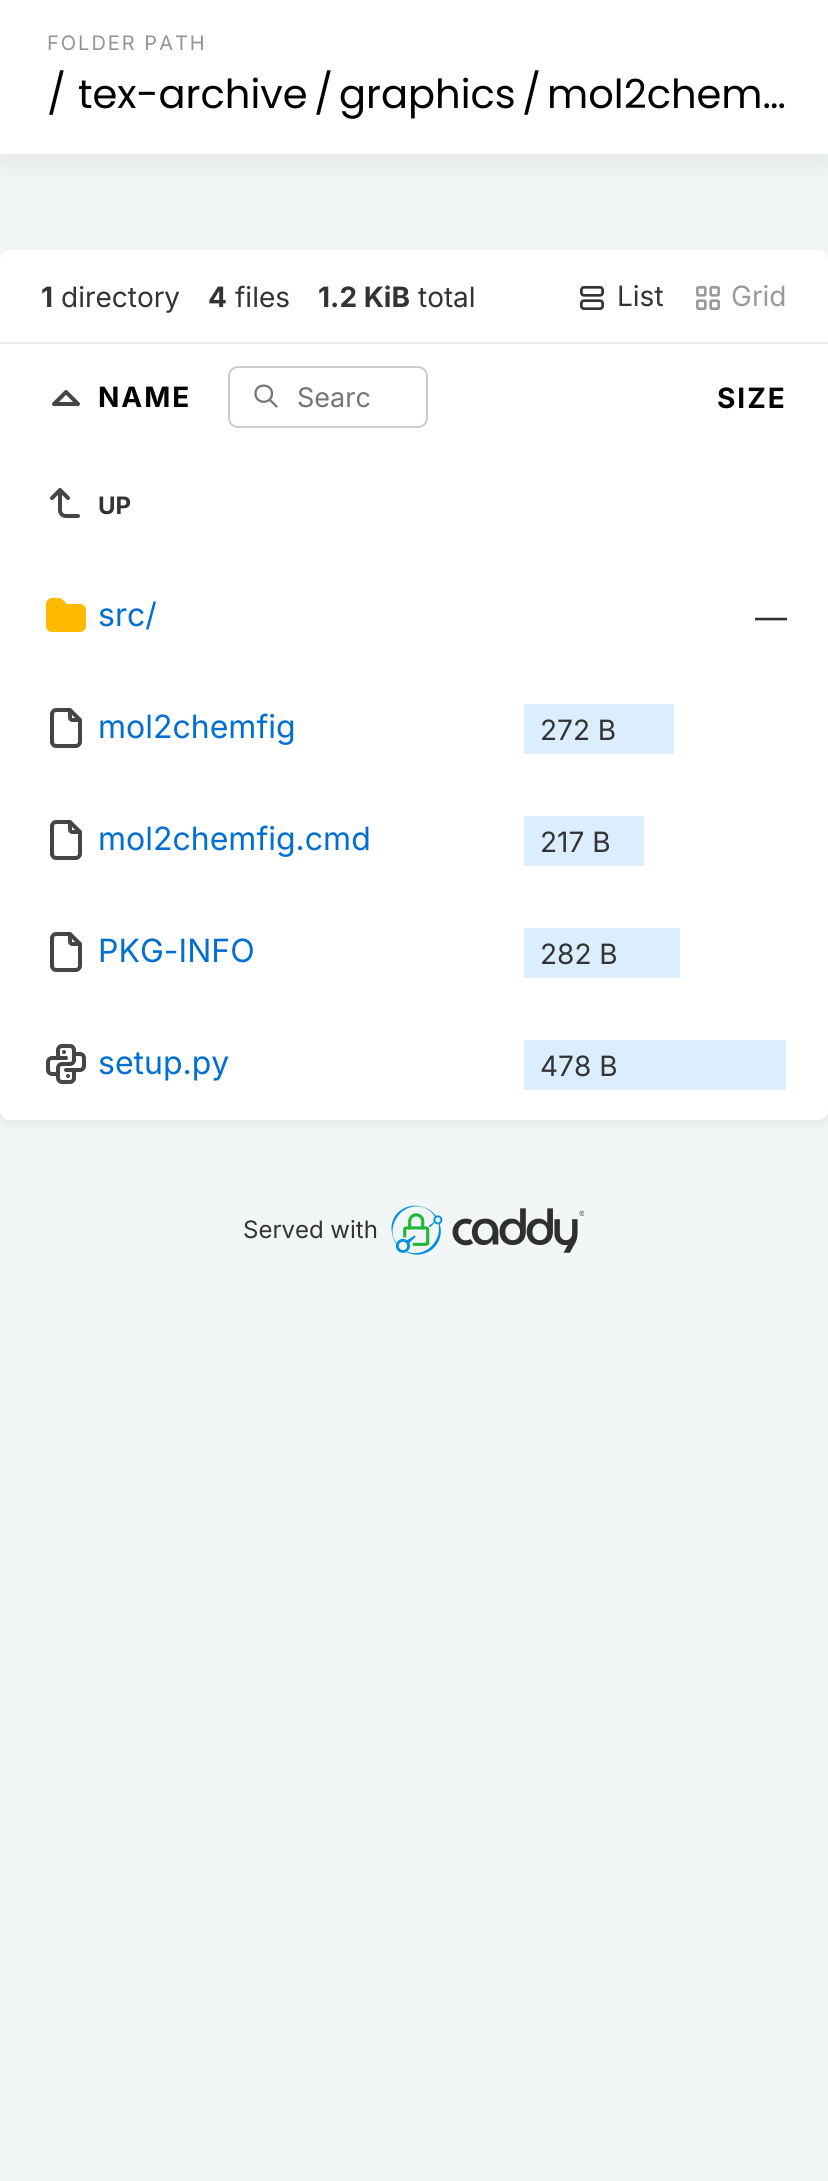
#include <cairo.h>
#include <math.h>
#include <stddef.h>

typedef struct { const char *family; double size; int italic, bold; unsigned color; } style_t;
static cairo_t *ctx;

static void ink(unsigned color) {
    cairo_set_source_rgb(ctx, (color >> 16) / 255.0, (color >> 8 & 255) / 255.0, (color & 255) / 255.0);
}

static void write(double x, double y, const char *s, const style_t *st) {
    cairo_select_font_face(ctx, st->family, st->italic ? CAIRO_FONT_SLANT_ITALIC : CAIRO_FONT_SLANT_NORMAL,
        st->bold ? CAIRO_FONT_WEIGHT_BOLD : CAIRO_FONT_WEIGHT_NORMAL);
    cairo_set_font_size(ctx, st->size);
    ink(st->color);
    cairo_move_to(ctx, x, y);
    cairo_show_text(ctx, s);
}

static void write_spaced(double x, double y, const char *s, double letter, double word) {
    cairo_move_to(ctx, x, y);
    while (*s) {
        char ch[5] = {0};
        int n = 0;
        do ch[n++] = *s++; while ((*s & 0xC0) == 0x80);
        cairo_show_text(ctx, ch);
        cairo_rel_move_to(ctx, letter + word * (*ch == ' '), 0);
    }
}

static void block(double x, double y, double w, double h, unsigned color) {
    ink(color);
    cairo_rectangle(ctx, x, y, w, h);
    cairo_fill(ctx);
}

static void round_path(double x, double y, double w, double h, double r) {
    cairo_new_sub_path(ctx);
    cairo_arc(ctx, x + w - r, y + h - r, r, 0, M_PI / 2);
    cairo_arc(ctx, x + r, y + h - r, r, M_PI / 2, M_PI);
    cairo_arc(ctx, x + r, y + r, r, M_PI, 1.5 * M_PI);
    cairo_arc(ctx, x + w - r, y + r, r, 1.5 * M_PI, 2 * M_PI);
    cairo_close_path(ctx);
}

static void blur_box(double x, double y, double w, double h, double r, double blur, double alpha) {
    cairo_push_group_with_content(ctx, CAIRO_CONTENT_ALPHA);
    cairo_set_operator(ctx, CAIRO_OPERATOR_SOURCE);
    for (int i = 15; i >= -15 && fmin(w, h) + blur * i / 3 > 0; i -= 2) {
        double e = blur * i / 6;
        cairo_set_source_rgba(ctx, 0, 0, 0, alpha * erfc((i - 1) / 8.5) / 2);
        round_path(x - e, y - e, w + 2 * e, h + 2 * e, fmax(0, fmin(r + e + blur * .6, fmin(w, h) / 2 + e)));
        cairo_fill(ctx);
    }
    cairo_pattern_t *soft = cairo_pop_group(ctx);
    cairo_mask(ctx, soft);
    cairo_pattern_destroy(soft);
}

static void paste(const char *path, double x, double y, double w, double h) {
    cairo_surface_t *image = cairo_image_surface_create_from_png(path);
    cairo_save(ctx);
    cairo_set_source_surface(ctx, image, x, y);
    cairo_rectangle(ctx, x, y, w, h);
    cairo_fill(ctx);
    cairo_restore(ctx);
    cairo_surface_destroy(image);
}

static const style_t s1 = {"Poppins", 40, 0, 0, 0x000000};
static const style_t s2 = {"Inter", 28, 0, 1, 0x333333};
static const style_t s3 = {"Inter", 28, 0, 0, 0x333333};
static const style_t s4 = {"Inter", 28, 0, 0, 0x9a9a9a};
static const style_t s5 = {"Inter", 27, 0, 0, 0x757575};
static const style_t s6 = {"Inter", 24, 0, 1, 0x333333};
static const style_t s7 = {"Inter", 32, 0, 0, 0x006ed3};
static const style_t s8 = {"Inter", 32, 0, 0, 0x333333};
static const style_t s9 = {"Inter", 24, 0, 0, 0x333333};

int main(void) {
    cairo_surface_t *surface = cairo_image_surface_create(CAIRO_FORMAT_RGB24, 828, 2181);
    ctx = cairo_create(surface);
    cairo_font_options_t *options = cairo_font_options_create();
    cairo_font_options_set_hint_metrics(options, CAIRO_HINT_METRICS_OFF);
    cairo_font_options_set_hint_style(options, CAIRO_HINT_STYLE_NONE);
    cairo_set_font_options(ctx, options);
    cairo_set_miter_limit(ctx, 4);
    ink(0xf3f6f7);
    cairo_paint(ctx);
    ink(0x000000);
    blur_box(0, 0, 828, 154, 0, 20, 0.1);
    block(0, 0, 828, 154, 0xffffff);
    cairo_select_font_face(ctx, "Inter", CAIRO_FONT_SLANT_NORMAL, CAIRO_FONT_WEIGHT_NORMAL);
    cairo_set_font_size(ctx, 20);
    ink(0x939393);
    write_spaced(47, 50, "FOLDER PATH", 2, 0);
    write(47, 108, "/", &s1);
    write(78, 108, "tex-archive", &s1);
    write(314, 108, "/", &s1);
    write(339, 108, "graphics", &s1);
    write(522, 108, "/", &s1);
    write(547, 108, "mol2chem…", &s1);
    ink(0x000000);
    blur_box(-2, 252, 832, 874, 12, 5, 0.05);
    ink(0xffffff);
    round_path(0, 250, 828, 870, 10);
    cairo_fill(ctx);
    block(0, 342, 828, 2, 0xe5e9ea);
    write(41, 307, "1", &s2);
    write(61, 307, "directory", &s3);
    write(208, 307, "4", &s2);
    write(235, 307, "files", &s3);
    write(318, 307, "1.2 KiB", &s2);
    write(418, 307, "total", &s3);
    paste("pic1.png", 580, 286, 24, 24);
    write(617, 306, "List", &s3);
    paste("pic2.png", 696, 286, 24, 24);
    write(731, 306, "Grid", &s4);
    cairo_new_path(ctx);
    cairo_move_to(ctx, 78, 404);
    cairo_line_to(ctx, 66, 392);
    cairo_line_to(ctx, 54, 404);
    cairo_line_to(ctx, 78, 404);
    ink(0x454545);
    cairo_set_line_width(ctx, 4);
    cairo_set_line_cap(ctx, CAIRO_LINE_CAP_ROUND);
    cairo_set_line_join(ctx, CAIRO_LINE_JOIN_ROUND);
    cairo_stroke(ctx);
    cairo_select_font_face(ctx, "Inter", CAIRO_FONT_SLANT_NORMAL, CAIRO_FONT_WEIGHT_BOLD);
    ink(0x000000);
    write_spaced(98, 407, "NAME", 2, 0);
    cairo_new_path(ctx);
    cairo_move_to(ctx, 255.5, 393.5);
    cairo_curve_to(ctx, 255.5, 404.5, 272, 404.5, 272, 393.5);
    cairo_curve_to(ctx, 272, 383, 255.5, 383, 255.5, 393.5);
    cairo_move_to(ctx, 276.5, 406.5);
    cairo_line_to(ctx, 269.5, 399.5);
    ink(0x777777);
    cairo_set_line_width(ctx, 2.3);
    cairo_stroke(ctx);
    round_path(229, 367, 198, 60, 9);
    ink(0xcccccc);
    cairo_set_line_width(ctx, 2);
    cairo_set_line_cap(ctx, CAIRO_LINE_CAP_BUTT);
    cairo_set_line_join(ctx, CAIRO_LINE_JOIN_MITER);
    cairo_stroke(ctx);
    write(297, 407, "Searc", &s5);
    cairo_select_font_face(ctx, "Inter", CAIRO_FONT_SLANT_NORMAL, CAIRO_FONT_WEIGHT_BOLD);
    cairo_set_font_size(ctx, 28);
    ink(0x000000);
    write_spaced(717, 408, "SIZE", 2, 0);
    cairo_new_path(ctx);
    cairo_move_to(ctx, 78, 516);
    cairo_line_to(ctx, 66, 516);
    cairo_curve_to(ctx, 62.5, 516, 60, 513.5, 60, 510);
    cairo_line_to(ctx, 60, 490);
    cairo_line_to(ctx, 52, 498);
    cairo_move_to(ctx, 68, 498);
    cairo_line_to(ctx, 60, 490);
    ink(0x454545);
    cairo_set_line_width(ctx, 4);
    cairo_set_line_cap(ctx, CAIRO_LINE_CAP_ROUND);
    cairo_set_line_join(ctx, CAIRO_LINE_JOIN_ROUND);
    cairo_stroke(ctx);
    write(98, 514, "UP", &s6);
    paste("pic3.png", 46, 598, 40, 34);
    write(98, 626, "src/", &s7);
    write(755, 629, "—", &s8);
    cairo_new_path(ctx);
    cairo_move_to(ctx, 70, 710);
    cairo_curve_to(ctx, 70, 721.5, 68.5, 720, 80, 720);
    cairo_move_to(ctx, 76, 746);
    cairo_line_to(ctx, 56, 746);
    cairo_curve_to(ctx, 54, 746, 52, 744, 52, 742);
    cairo_line_to(ctx, 52, 714);
    cairo_curve_to(ctx, 52, 712, 54, 710, 56, 710);
    cairo_line_to(ctx, 70, 710);
    cairo_line_to(ctx, 80, 720);
    cairo_line_to(ctx, 80, 742);
    cairo_curve_to(ctx, 80, 744, 78, 746, 76, 746);
    cairo_close_path(ctx);
    ink(0x454545);
    cairo_stroke(ctx);
    write(98, 738, "mol2chemfig", &s7);
    block(524, 704, 150, 50, 0xdbeeff);
    write(540, 740, "272 B", &s3);
    cairo_new_path(ctx);
    cairo_move_to(ctx, 70, 822);
    cairo_curve_to(ctx, 70, 833.5, 68.5, 832, 80, 832);
    cairo_move_to(ctx, 76, 858);
    cairo_line_to(ctx, 56, 858);
    cairo_curve_to(ctx, 54, 858, 52, 856, 52, 854);
    cairo_line_to(ctx, 52, 826);
    cairo_curve_to(ctx, 52, 824, 54, 822, 56, 822);
    cairo_line_to(ctx, 70, 822);
    cairo_line_to(ctx, 80, 832);
    cairo_line_to(ctx, 80, 854);
    cairo_curve_to(ctx, 80, 856, 78, 858, 76, 858);
    cairo_close_path(ctx);
    ink(0x454545);
    cairo_stroke(ctx);
    write(98, 850, "mol2chemfig.cmd", &s7);
    block(524, 816, 120, 50, 0xdbeeff);
    write(540, 852, "217 B", &s3);
    cairo_new_path(ctx);
    cairo_move_to(ctx, 70, 934);
    cairo_curve_to(ctx, 70, 945.5, 68.5, 944, 80, 944);
    cairo_move_to(ctx, 76, 970);
    cairo_line_to(ctx, 56, 970);
    cairo_curve_to(ctx, 54, 970, 52, 968, 52, 966);
    cairo_line_to(ctx, 52, 938);
    cairo_curve_to(ctx, 52, 936, 54, 934, 56, 934);
    cairo_line_to(ctx, 70, 934);
    cairo_line_to(ctx, 80, 944);
    cairo_line_to(ctx, 80, 966);
    cairo_curve_to(ctx, 80, 968, 78, 970, 76, 970);
    cairo_close_path(ctx);
    ink(0x454545);
    cairo_stroke(ctx);
    write(98, 962, "PKG-INFO", &s7);
    block(524, 928, 156, 50, 0xdbeeff);
    write(540, 964, "282 B", &s3);
    paste("pic4.png", 46, 1044, 40, 40);
    write(98, 1074, "setup.py", &s7);
    block(524, 1040, 262, 50, 0xdbeeff);
    write(540, 1076, "478 B", &s3);
    write(243, 1238, "Served with", &s9);
    paste("pic5.png", 391, 1205, 193, 50);
    cairo_surface_write_to_png(surface, "screenshot.png");
    cairo_font_options_destroy(options);
    cairo_destroy(ctx);
    cairo_surface_destroy(surface);
    return 0;
}
